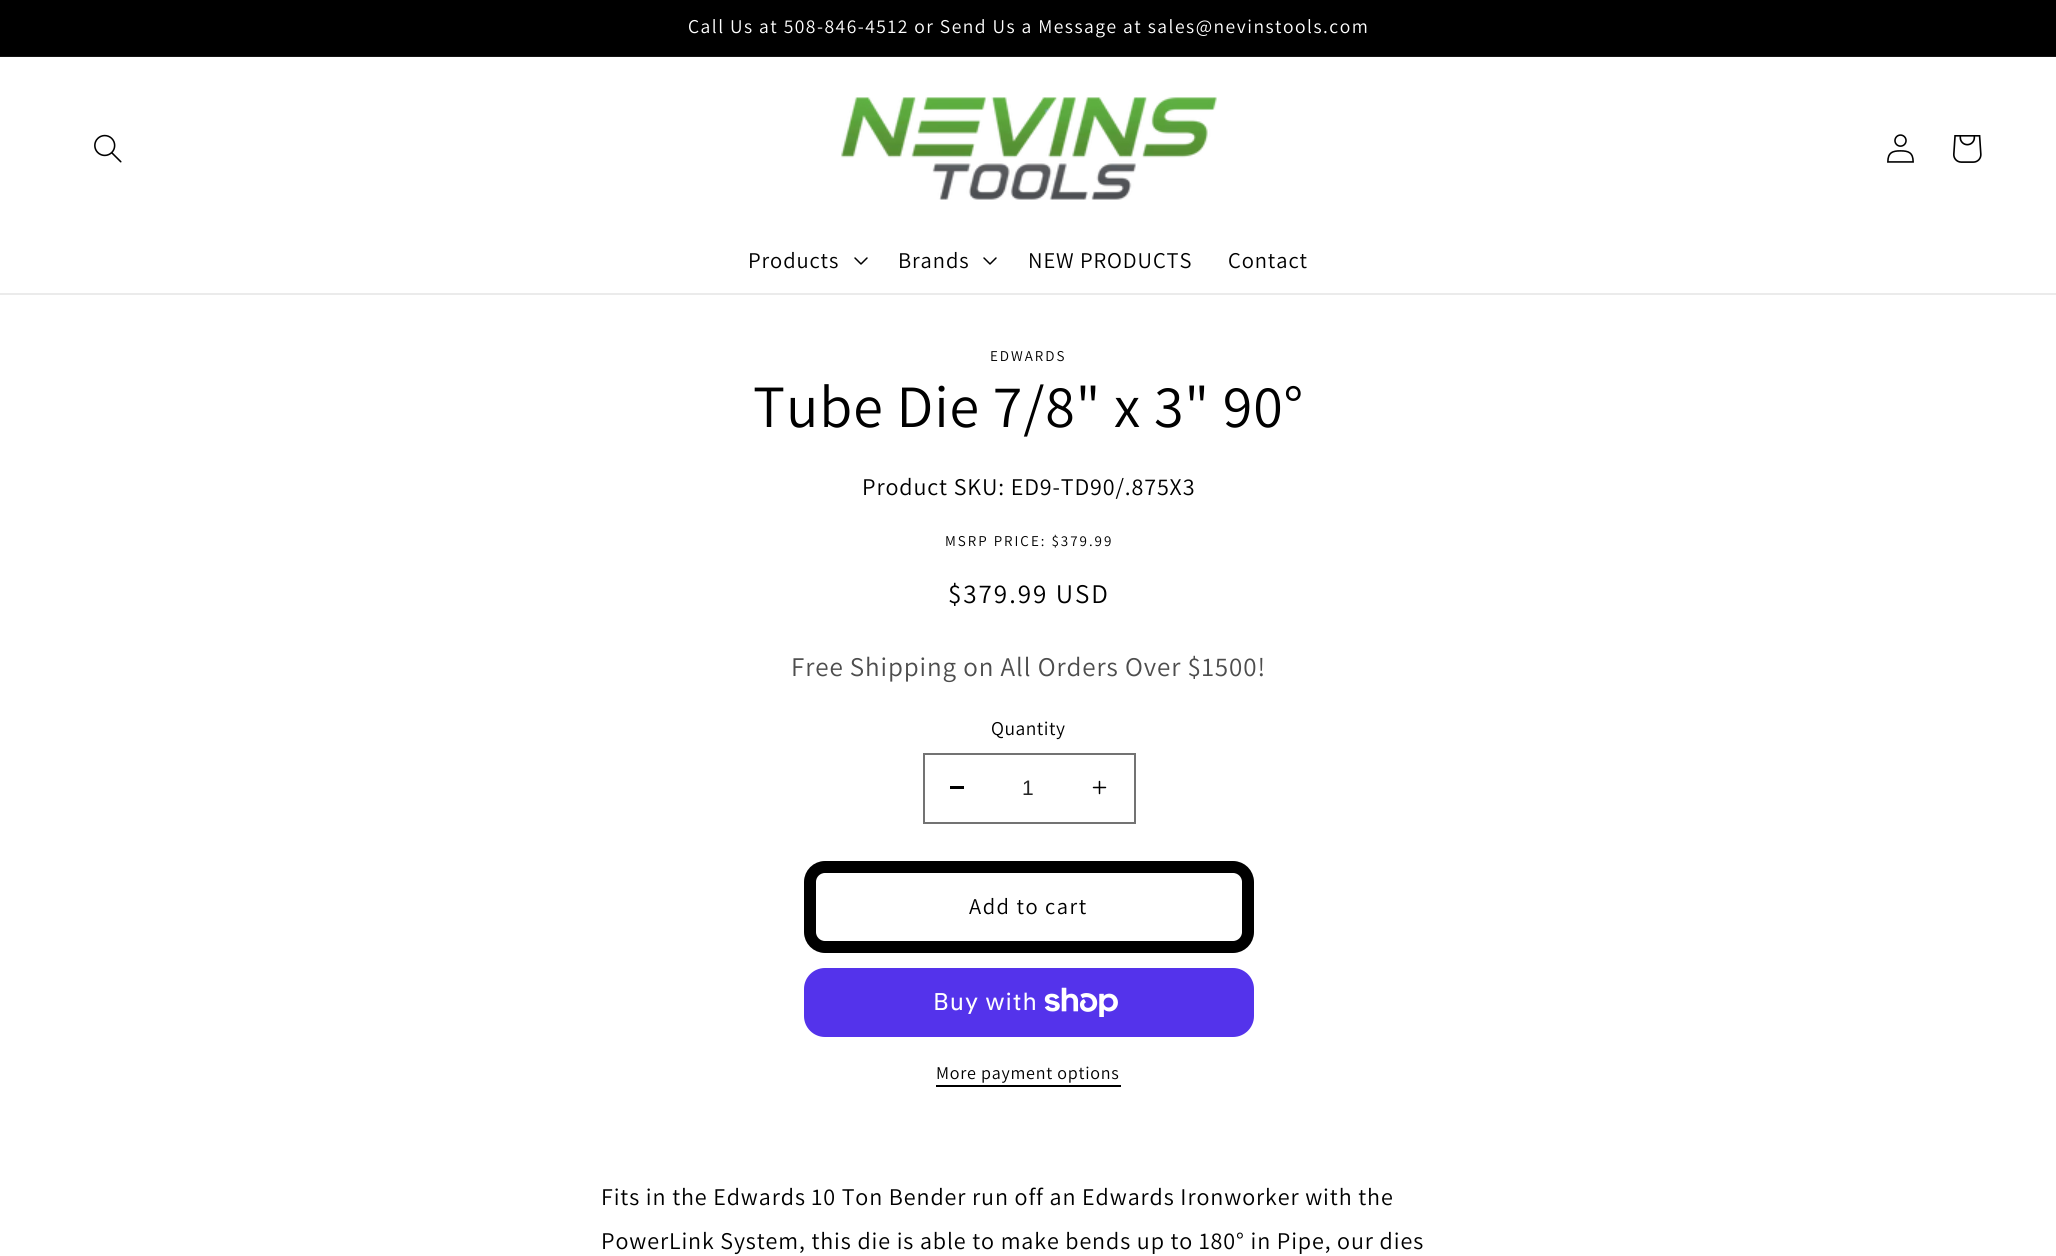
#include <cairo.h>
#include <math.h>
#include <stddef.h>

typedef struct { const char *family; double size; int italic, bold; unsigned color; } style_t;
static cairo_t *ctx;

static void ink(unsigned color) {
    cairo_set_source_rgb(ctx, (color >> 16) / 255.0, (color >> 8 & 255) / 255.0, (color & 255) / 255.0);
}

static void write(double x, double y, const char *s, const style_t *st) {
    cairo_select_font_face(ctx, st->family, st->italic ? CAIRO_FONT_SLANT_ITALIC : CAIRO_FONT_SLANT_NORMAL,
        st->bold ? CAIRO_FONT_WEIGHT_BOLD : CAIRO_FONT_WEIGHT_NORMAL);
    cairo_set_font_size(ctx, st->size);
    ink(st->color);
    cairo_move_to(ctx, x, y);
    cairo_show_text(ctx, s);
}

static void write_spaced(double x, double y, const char *s, double letter, double word) {
    cairo_move_to(ctx, x, y);
    while (*s) {
        char ch[5] = {0};
        int n = 0;
        do ch[n++] = *s++; while ((*s & 0xC0) == 0x80);
        cairo_show_text(ctx, ch);
        cairo_rel_move_to(ctx, letter + word * (*ch == ' '), 0);
    }
}

static void block(double x, double y, double w, double h, unsigned color) {
    ink(color);
    cairo_rectangle(ctx, x, y, w, h);
    cairo_fill(ctx);
}

static void round_path(double x, double y, double w, double h, double r) {
    cairo_new_sub_path(ctx);
    cairo_arc(ctx, x + w - r, y + h - r, r, 0, M_PI / 2);
    cairo_arc(ctx, x + r, y + h - r, r, M_PI / 2, M_PI);
    cairo_arc(ctx, x + r, y + r, r, M_PI, 1.5 * M_PI);
    cairo_arc(ctx, x + w - r, y + r, r, 1.5 * M_PI, 2 * M_PI);
    cairo_close_path(ctx);
}

static void paste(const char *path, double x, double y, double w, double h) {
    cairo_surface_t *image = cairo_image_surface_create_from_png(path);
    cairo_save(ctx);
    cairo_set_source_surface(ctx, image, x, y);
    cairo_rectangle(ctx, x, y, w, h);
    cairo_fill(ctx);
    cairo_restore(ctx);
    cairo_surface_destroy(image);
}

static const style_t s1 = {"Liberation Sans", 21, 0, 0, 0x262626};

int main(void) {
    cairo_surface_t *surface = cairo_image_surface_create(CAIRO_FORMAT_RGB24, 2056, 1256);
    ctx = cairo_create(surface);
    cairo_font_options_t *options = cairo_font_options_create();
    cairo_font_options_set_hint_metrics(options, CAIRO_HINT_METRICS_OFF);
    cairo_font_options_set_hint_style(options, CAIRO_HINT_STYLE_NONE);
    cairo_set_font_options(ctx, options);
    cairo_set_miter_limit(ctx, 4);
    ink(0xffffff);
    cairo_paint(ctx);
    block(0, 0, 2056, 56, 0x000000);
    block(0, 56, 2056, 1, 0x141414);
    cairo_select_font_face(ctx, "Assistant", CAIRO_FONT_SLANT_NORMAL, CAIRO_FONT_WEIGHT_NORMAL);
    cairo_set_font_size(ctx, 19.5);
    ink(0xffffff);
    write_spaced(688, 33, "Call Us at 508-846-4512 or Send Us a Message at sales@nevinstools.com", 1.5, 0);
    block(0, 293, 2056, 2, 0xebebeb);
    paste("pic1.png", 94, 134, 28, 29);
    paste("pic2.png", 841, 97, 376, 103);
    paste("pic3.png", 1887, 134, 27, 29);
    paste("pic4.png", 1953, 135, 29, 28);
    cairo_set_font_size(ctx, 22.5);
    ink(0x000000);
    write_spaced(748, 268, "Products", 0.9, 0);
    paste("pic5.png", 854, 257, 14, 8);
    write_spaced(898, 268, "Brands", 0.9, 0);
    paste("pic5.png", 983, 257, 14, 8);
    write_spaced(1028, 268, "NEW PRODUCTS", 0.9, 0);
    write_spaced(1228, 268, "Contact", 0.9, 0);
    cairo_set_font_size(ctx, 15);
    write_spaced(990, 361, "EDWARDS", 2, 0);
    cairo_set_font_size(ctx, 60);
    write_spaced(753, 427, "Tube Die 7/8\" x 3\" 90°", 0.9, 0);
    cairo_set_font_size(ctx, 24);
    write_spaced(862, 495, "Product SKU: ED9-TD90/.875X3", 0.9, 0);
    cairo_set_font_size(ctx, 15);
    write_spaced(945, 546, "MSRP PRICE: $379.99", 2, 0);
    cairo_set_font_size(ctx, 27);
    write_spaced(948, 603, "$379.99 USD", 2, 0);
    ink(0x4d4d4d);
    write_spaced(791, 676, "Free Shipping on All Orders Over $1500!", 0.9, 0);
    cairo_set_font_size(ctx, 19.5);
    ink(0x000000);
    write_spaced(991, 735, "Quantity", 0.5, 0);
    block(950, 786, 14, 3, 0x000000);
    paste("pic6.png", 1092, 780, 15, 15);
    cairo_rectangle(ctx, 924, 754, 211, 69);
    ink(0x737373);
    cairo_stroke(ctx);
    write(1022, 795, "1", &s1);
    round_path(810, 867, 438, 80, 15);
    ink(0x000000);
    cairo_set_line_width(ctx, 12);
    cairo_stroke(ctx);
    cairo_select_font_face(ctx, "Assistant", CAIRO_FONT_SLANT_NORMAL, CAIRO_FONT_WEIGHT_NORMAL);
    cairo_set_font_size(ctx, 22.5);
    write_spaced(969, 914, "Add to cart", 1.5, 0);
    ink(0x5433eb);
    round_path(804, 968, 450, 69, 21);
    cairo_fill(ctx);
    cairo_select_font_face(ctx, "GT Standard", CAIRO_FONT_SLANT_NORMAL, CAIRO_FONT_WEIGHT_NORMAL);
    cairo_set_font_size(ctx, 24);
    ink(0xffffff);
    write_spaced(933, 1010, "Buy with", 0.9, 0);
    paste("pic7.png", 1044, 987, 74, 30);
    cairo_select_font_face(ctx, "Assistant", CAIRO_FONT_SLANT_NORMAL, CAIRO_FONT_WEIGHT_NORMAL);
    cairo_set_font_size(ctx, 18);
    ink(0x000000);
    write_spaced(936, 1079, "More payment options", 0.75, 0);
    block(936, 1085, 185, 2, 0x000000);
    cairo_set_font_size(ctx, 24);
    write_spaced(601, 1205, "Fits in the Edwards 10 Ton Bender run off an Edwards Ironworker with the", 0.9, 0);
    write_spaced(601, 1249, "PowerLink System, this die is able to make bends up to 180° in Pipe, our dies", 0.9, 0);
    cairo_surface_write_to_png(surface, "screenshot.png");
    cairo_font_options_destroy(options);
    cairo_destroy(ctx);
    cairo_surface_destroy(surface);
    return 0;
}
